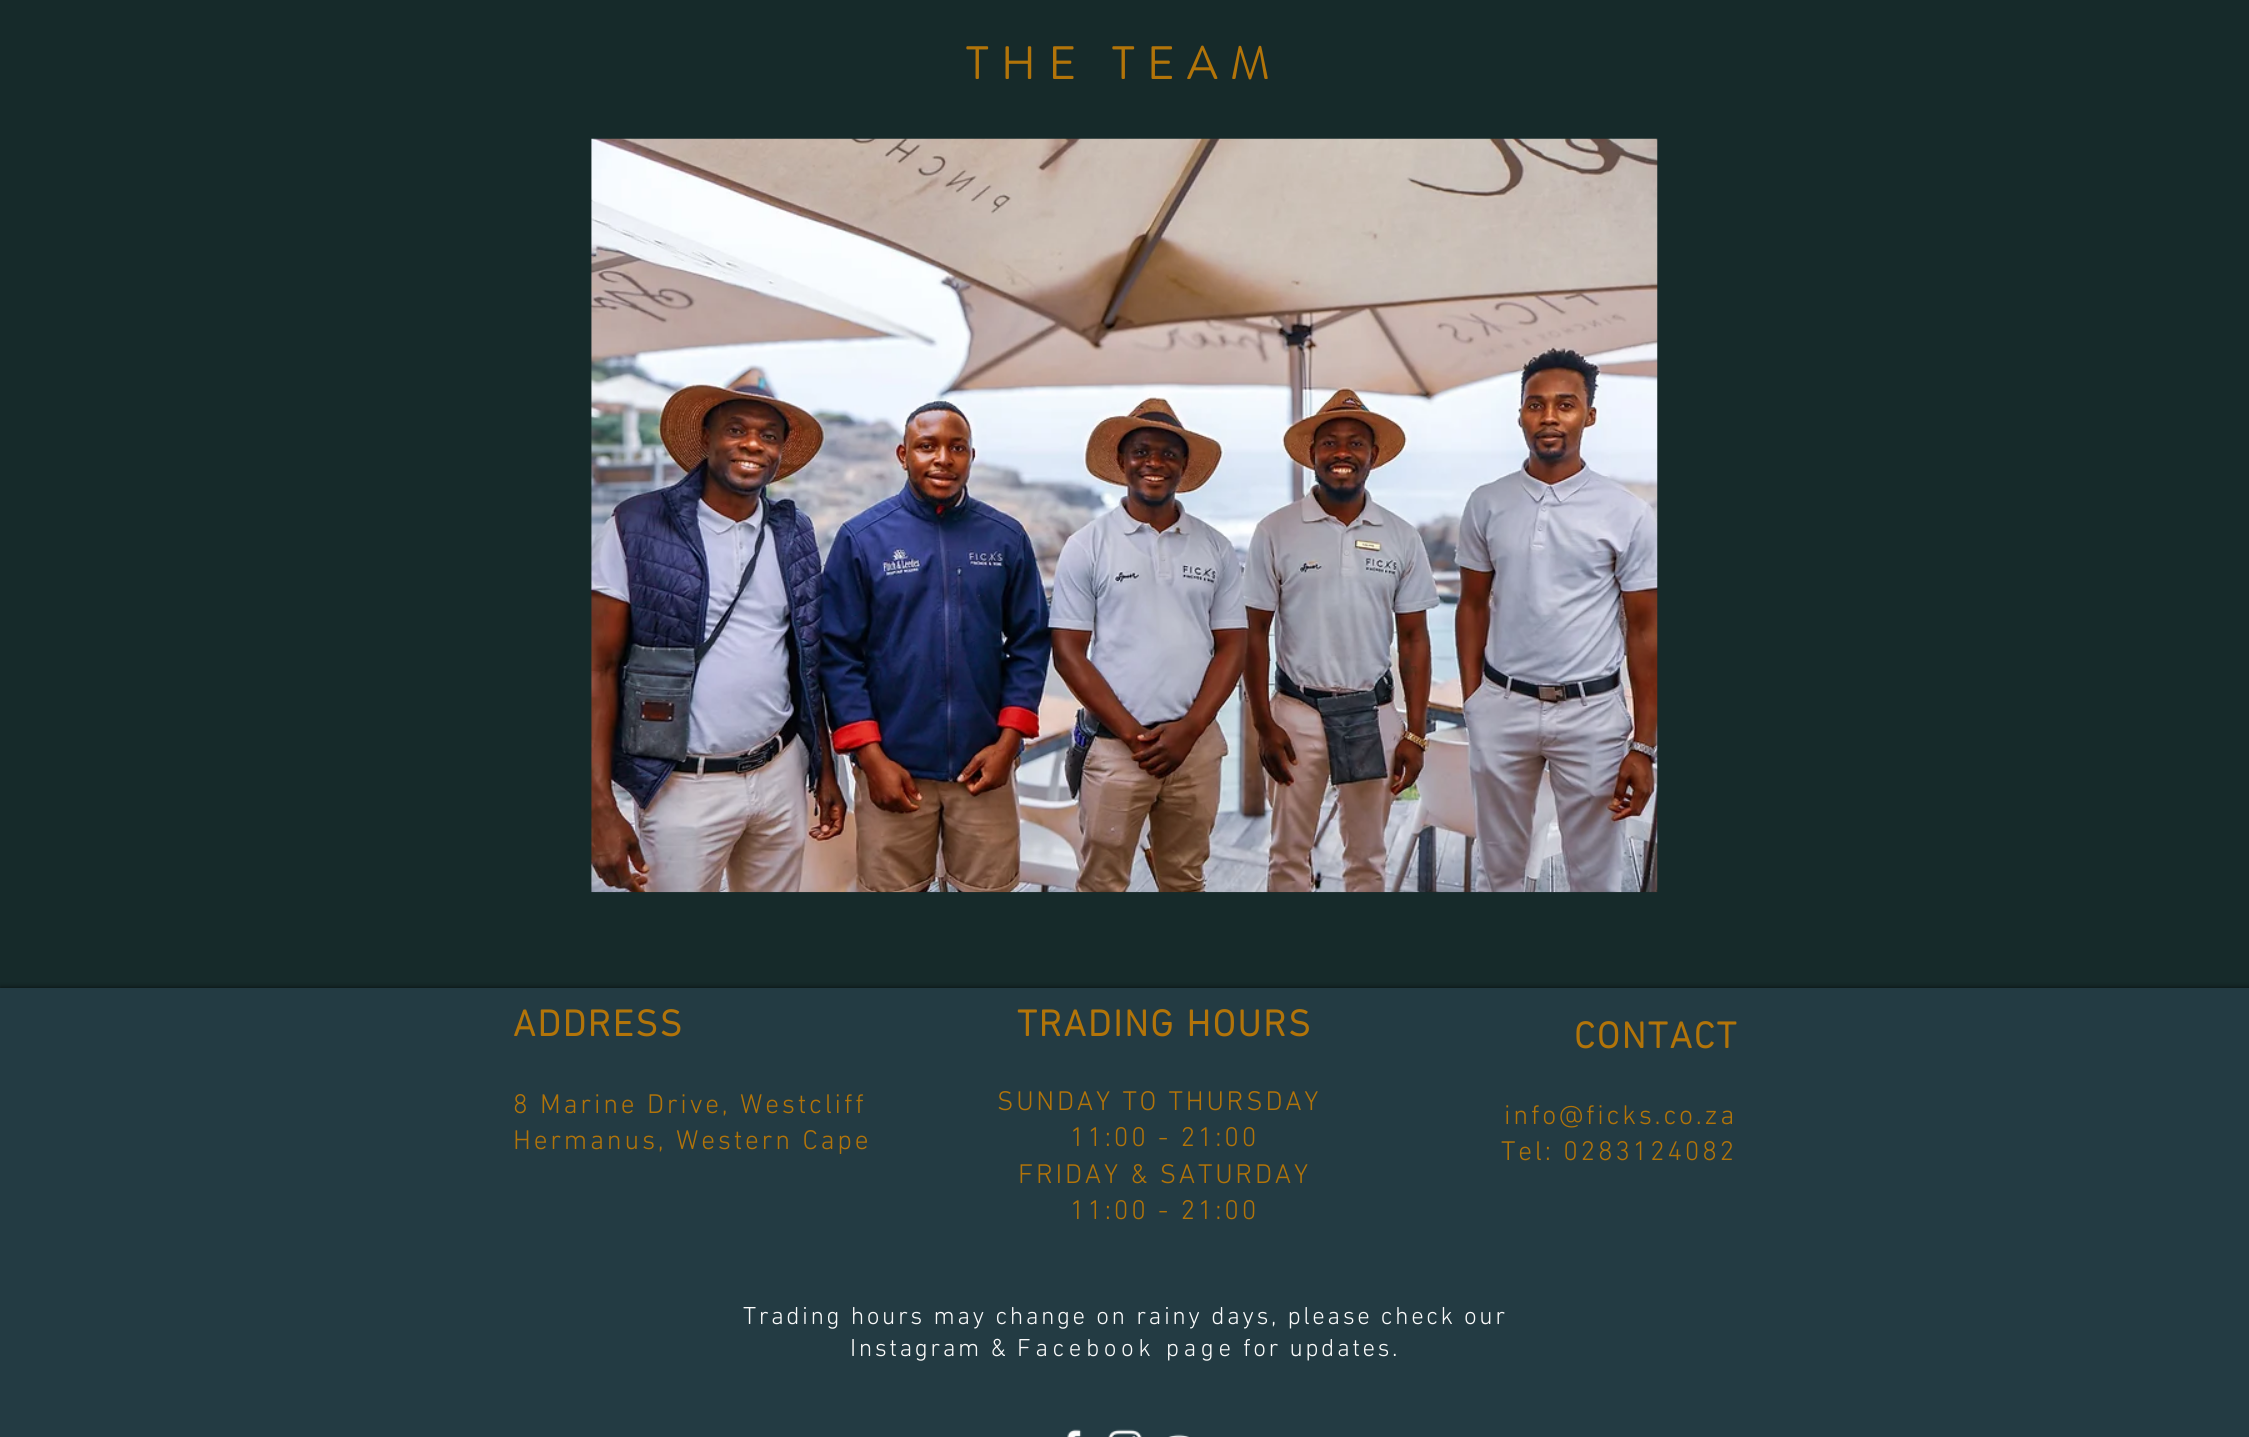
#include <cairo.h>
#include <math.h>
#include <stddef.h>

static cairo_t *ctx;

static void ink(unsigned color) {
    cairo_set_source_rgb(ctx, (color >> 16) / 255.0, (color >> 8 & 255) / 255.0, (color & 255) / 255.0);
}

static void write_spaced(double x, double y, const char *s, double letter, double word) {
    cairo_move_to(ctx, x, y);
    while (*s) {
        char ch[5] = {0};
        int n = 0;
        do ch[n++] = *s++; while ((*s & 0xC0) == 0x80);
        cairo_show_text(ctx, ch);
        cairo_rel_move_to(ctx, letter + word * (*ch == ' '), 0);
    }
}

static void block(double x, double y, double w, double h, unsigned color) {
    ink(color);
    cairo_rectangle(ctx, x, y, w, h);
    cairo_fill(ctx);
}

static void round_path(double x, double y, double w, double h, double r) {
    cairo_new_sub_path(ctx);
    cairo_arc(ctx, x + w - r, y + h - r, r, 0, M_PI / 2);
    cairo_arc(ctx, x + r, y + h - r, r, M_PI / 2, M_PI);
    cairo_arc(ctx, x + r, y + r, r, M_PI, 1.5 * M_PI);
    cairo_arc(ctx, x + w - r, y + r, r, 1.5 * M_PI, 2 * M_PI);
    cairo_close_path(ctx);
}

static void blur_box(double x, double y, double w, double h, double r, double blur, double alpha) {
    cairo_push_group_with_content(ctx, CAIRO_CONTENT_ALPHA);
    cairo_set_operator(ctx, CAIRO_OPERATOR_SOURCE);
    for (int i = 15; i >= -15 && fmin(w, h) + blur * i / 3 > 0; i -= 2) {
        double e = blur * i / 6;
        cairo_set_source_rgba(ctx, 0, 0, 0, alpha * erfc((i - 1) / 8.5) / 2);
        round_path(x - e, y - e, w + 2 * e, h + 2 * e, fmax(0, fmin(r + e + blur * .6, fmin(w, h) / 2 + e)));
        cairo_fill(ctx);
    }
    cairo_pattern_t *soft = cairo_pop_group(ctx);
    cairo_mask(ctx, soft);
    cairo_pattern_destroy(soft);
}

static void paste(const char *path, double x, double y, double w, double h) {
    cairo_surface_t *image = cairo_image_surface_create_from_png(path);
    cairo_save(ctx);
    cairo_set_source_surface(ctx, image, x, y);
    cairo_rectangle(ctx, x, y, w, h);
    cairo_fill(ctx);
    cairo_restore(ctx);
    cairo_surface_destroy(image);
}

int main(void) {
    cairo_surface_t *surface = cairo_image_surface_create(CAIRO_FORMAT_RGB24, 2249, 1437);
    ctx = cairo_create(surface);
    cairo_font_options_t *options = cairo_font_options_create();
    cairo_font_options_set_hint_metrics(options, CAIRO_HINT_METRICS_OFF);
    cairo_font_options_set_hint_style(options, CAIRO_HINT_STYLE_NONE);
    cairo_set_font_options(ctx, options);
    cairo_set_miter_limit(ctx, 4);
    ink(0x162a2a);
    cairo_paint(ctx);
    cairo_select_font_face(ctx, "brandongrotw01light", CAIRO_FONT_SLANT_NORMAL, CAIRO_FONT_WEIGHT_BOLD);
    cairo_set_font_size(ctx, 45);
    ink(0xb27409);
    write_spaced(966, 79, "THE TEAM", 13.5, 0);
    paste("pic1.png", 591, 138, 1067, 755);
    ink(0x000000);
    blur_box(0, 988, 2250, 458, 0, 3, 0.7);
    block(0, 988, 2249, 449, 0x233b43);
    cairo_select_font_face(ctx, "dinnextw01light", CAIRO_FONT_SLANT_NORMAL, CAIRO_FONT_WEIGHT_BOLD);
    cairo_set_font_size(ctx, 37.5);
    ink(0xb27409);
    write_spaced(513, 1036, "ADDRESS", 1.9, 0);
    cairo_select_font_face(ctx, "dinnextw01light Light", CAIRO_FONT_SLANT_NORMAL, CAIRO_FONT_WEIGHT_NORMAL);
    cairo_set_font_size(ctx, 27.5);
    write_spaced(513, 1113, "8 Marine Drive, Westcliff", 2.75, 0);
    write_spaced(513, 1149, "Hermanus, Western Cape", 2.75, 0);
    cairo_select_font_face(ctx, "dinnextw01light", CAIRO_FONT_SLANT_NORMAL, CAIRO_FONT_WEIGHT_BOLD);
    cairo_set_font_size(ctx, 37.5);
    write_spaced(1017, 1036, "TRADING HOURS", 1.9, 0);
    cairo_select_font_face(ctx, "dinnextw01light Light", CAIRO_FONT_SLANT_NORMAL, CAIRO_FONT_WEIGHT_NORMAL);
    cairo_set_font_size(ctx, 27.5);
    write_spaced(997, 1110, "SUNDAY TO THURSDAY", 2.75, 0);
    write_spaced(1070, 1146, "11:00 - 21:00", 2.75, 0);
    write_spaced(1018, 1183, "FRIDAY & SATURDAY", 2.75, 0);
    write_spaced(1070, 1219, "11:00 - 21:00", 2.75, 0);
    cairo_select_font_face(ctx, "dinnextw01light", CAIRO_FONT_SLANT_NORMAL, CAIRO_FONT_WEIGHT_BOLD);
    cairo_set_font_size(ctx, 37.5);
    write_spaced(1574, 1048, "CONTACT", 1.9, 0);
    cairo_select_font_face(ctx, "dinnextw01light Light", CAIRO_FONT_SLANT_NORMAL, CAIRO_FONT_WEIGHT_NORMAL);
    cairo_set_font_size(ctx, 27.5);
    write_spaced(1504, 1124, "info@ficks.co.za", 2.75, 0);
    write_spaced(1501, 1160, "Tel: 0283124082", 2.75, 0);
    cairo_set_font_size(ctx, 25);
    ink(0xfafafa);
    write_spaced(743, 1324, "Trading hours may change on rainy days, please check our", 2.5, 0);
    write_spaced(850, 1356, "Instagram &", 2.5, 0);
    write_spaced(1017, 1356, "Facebook page", 4.5, 0);
    write_spaced(1243, 1356, "for updates.", 2.5, 0);
    paste("pic2.png", 1067, 1429, 15, 8);
    paste("pic3.png", 1108, 1429, 34, 8);
    paste("pic4.png", 1168, 1434, 21, 3);
    cairo_surface_write_to_png(surface, "screenshot.png");
    cairo_font_options_destroy(options);
    cairo_destroy(ctx);
    cairo_surface_destroy(surface);
    return 0;
}
